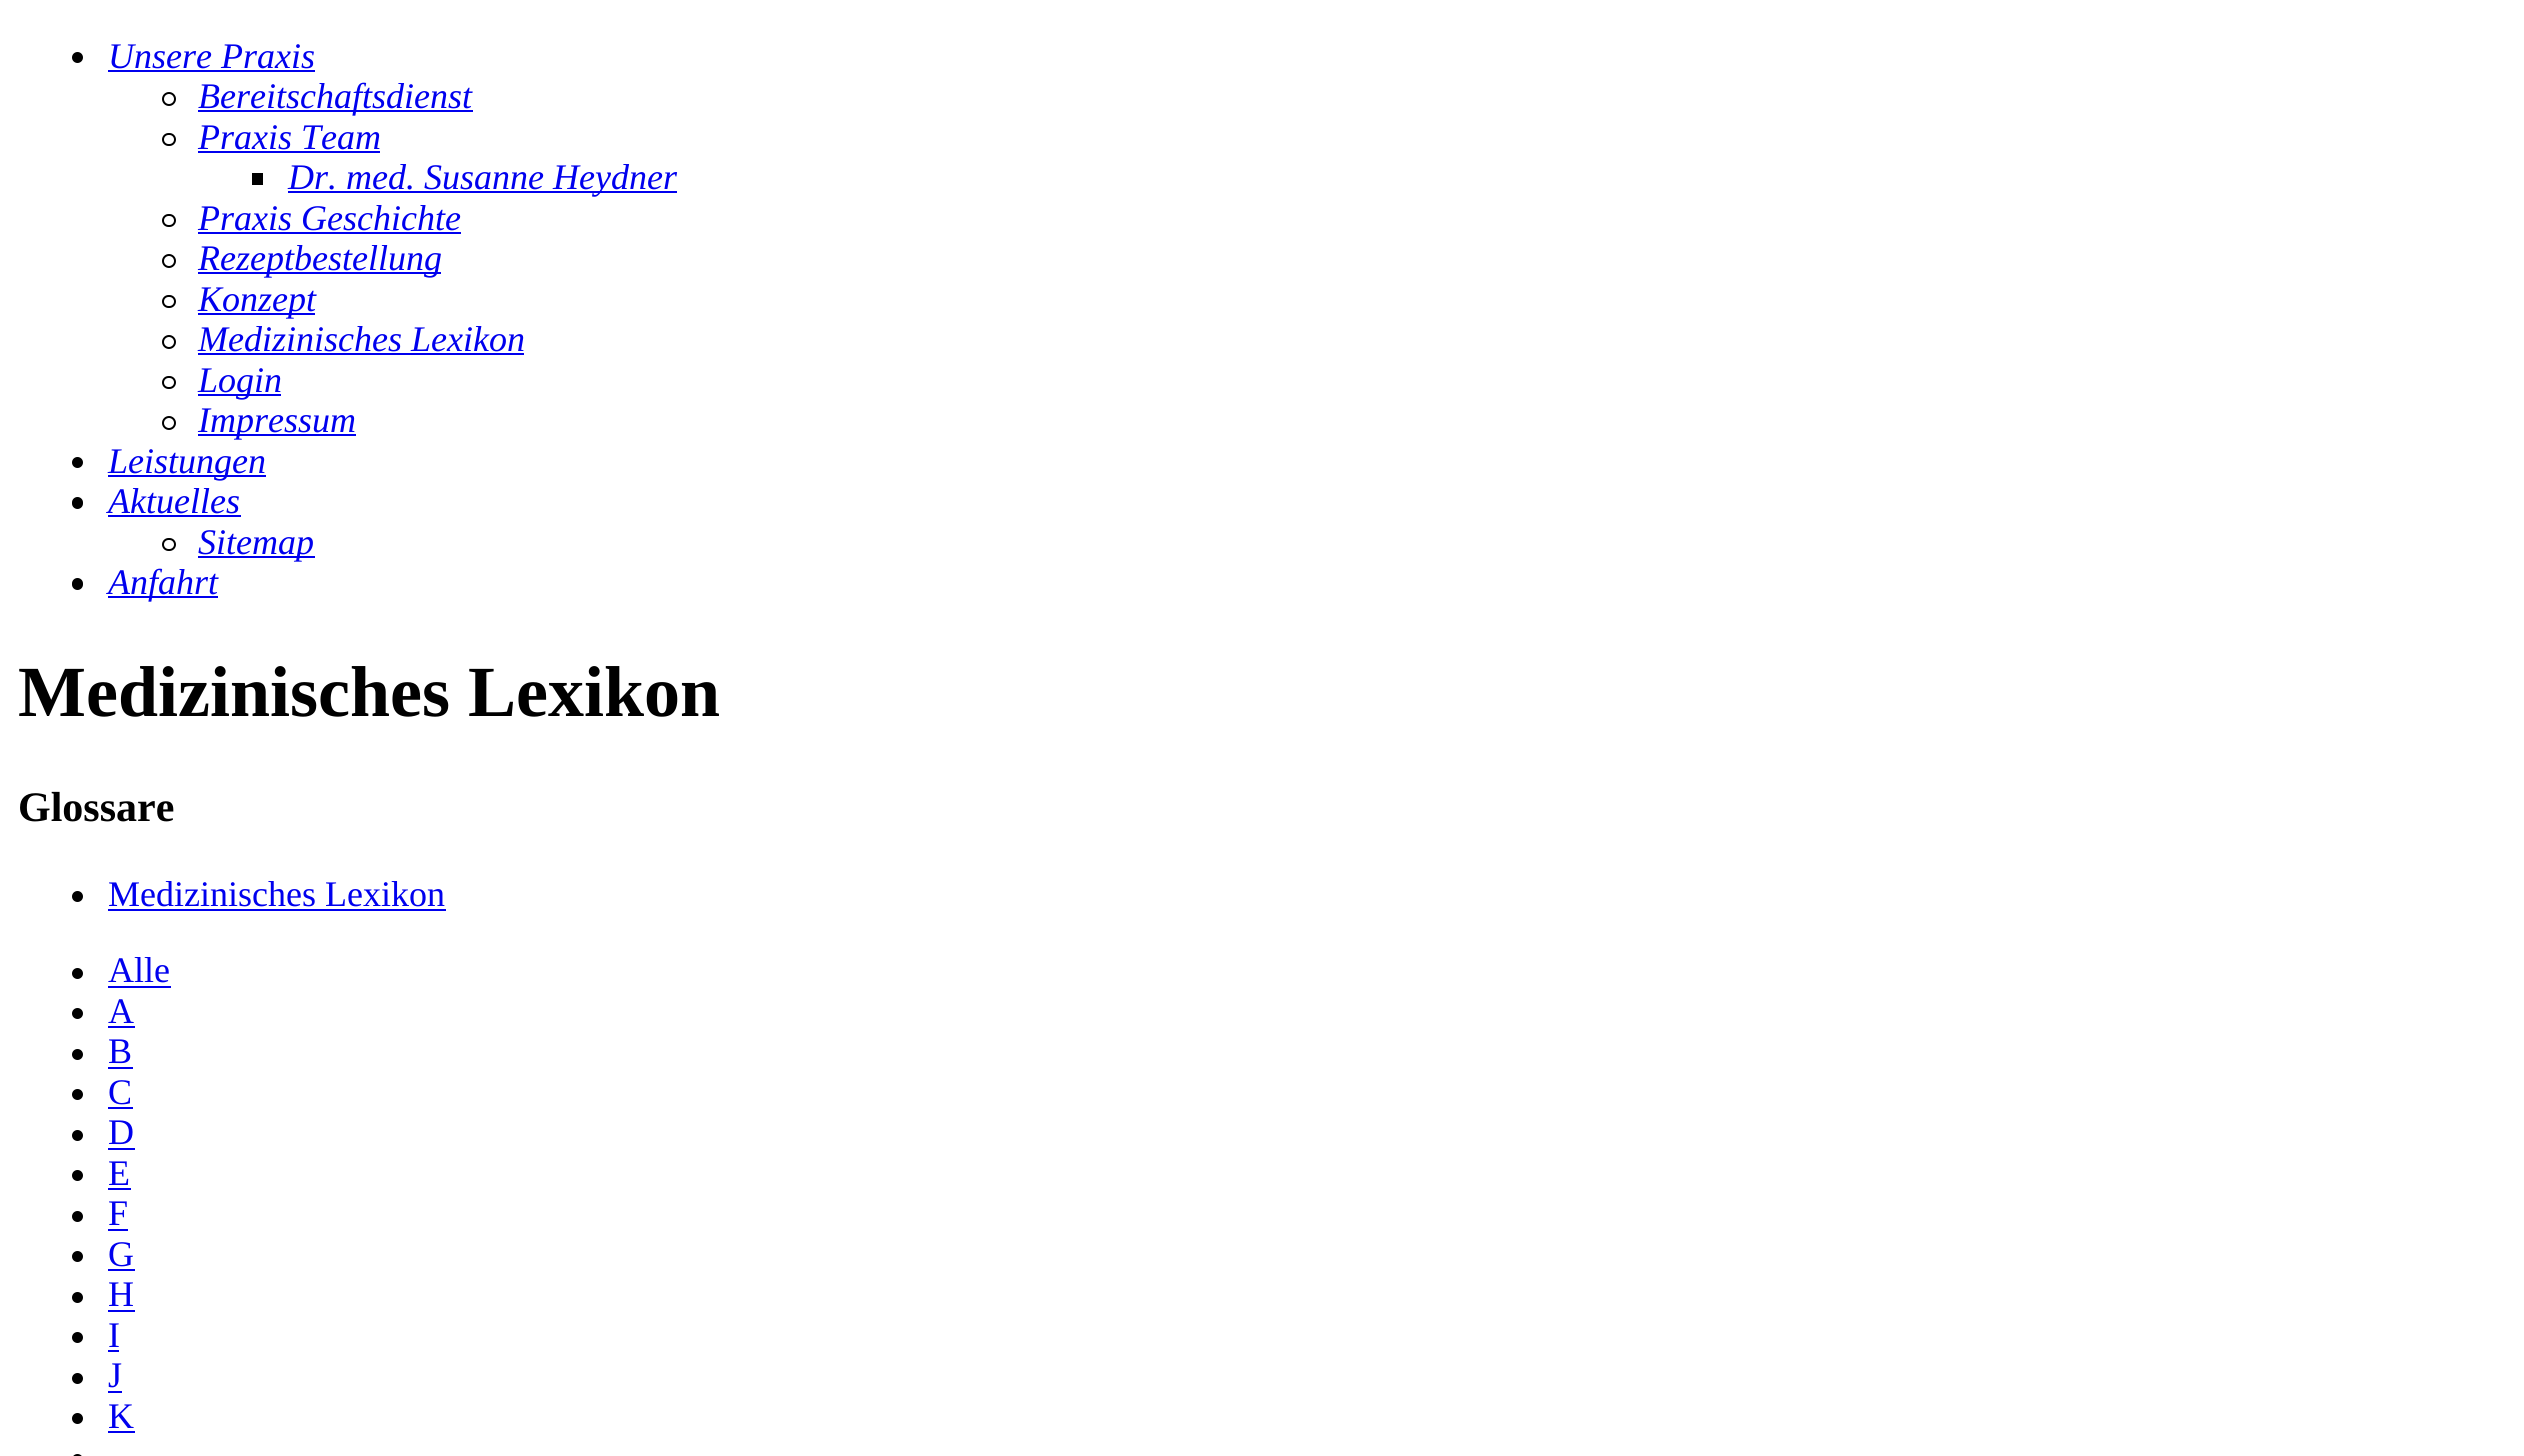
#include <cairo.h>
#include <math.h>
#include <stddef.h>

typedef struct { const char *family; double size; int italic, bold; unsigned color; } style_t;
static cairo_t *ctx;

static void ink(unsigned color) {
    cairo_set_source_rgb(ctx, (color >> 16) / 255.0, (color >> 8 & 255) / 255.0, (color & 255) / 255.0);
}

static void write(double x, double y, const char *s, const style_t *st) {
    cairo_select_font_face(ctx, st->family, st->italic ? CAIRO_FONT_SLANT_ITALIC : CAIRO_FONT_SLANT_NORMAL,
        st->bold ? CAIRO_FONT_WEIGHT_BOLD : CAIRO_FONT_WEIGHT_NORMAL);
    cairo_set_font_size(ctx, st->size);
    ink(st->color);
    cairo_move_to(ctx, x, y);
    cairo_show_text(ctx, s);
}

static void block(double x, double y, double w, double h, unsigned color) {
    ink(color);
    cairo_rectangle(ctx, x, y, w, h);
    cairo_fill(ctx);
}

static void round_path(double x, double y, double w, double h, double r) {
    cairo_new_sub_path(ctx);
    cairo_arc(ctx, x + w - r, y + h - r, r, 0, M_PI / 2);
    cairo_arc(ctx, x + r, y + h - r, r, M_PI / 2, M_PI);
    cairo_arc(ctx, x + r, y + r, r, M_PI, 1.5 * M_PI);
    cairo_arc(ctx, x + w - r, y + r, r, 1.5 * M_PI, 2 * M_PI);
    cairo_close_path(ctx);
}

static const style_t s1 = {"Liberation Serif", 36, 1, 0, 0x0000ee};
static const style_t s2 = {"Liberation Serif", 72, 0, 1, 0x000000};
static const style_t s3 = {"Liberation Serif", 42, 0, 1, 0x000000};
static const style_t s4 = {"Liberation Serif", 36, 0, 0, 0x0000ee};

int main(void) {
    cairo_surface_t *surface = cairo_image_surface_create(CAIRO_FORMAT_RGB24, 2524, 1456);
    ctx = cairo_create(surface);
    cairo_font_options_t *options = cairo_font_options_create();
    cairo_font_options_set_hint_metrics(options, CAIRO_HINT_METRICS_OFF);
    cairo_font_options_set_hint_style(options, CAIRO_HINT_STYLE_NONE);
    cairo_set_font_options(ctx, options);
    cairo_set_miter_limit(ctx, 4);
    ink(0xffffff);
    cairo_paint(ctx);
    ink(0x000000);
    cairo_arc(ctx, 77.5, 57.5, 5.5, 0, 2 * M_PI);
    cairo_fill(ctx);
    write(108, 68, "Unsere Praxis", &s1);
    block(108, 70, 207, 2, 0x0000ee);
    cairo_new_path(ctx);
    cairo_arc(ctx, 169, 99, 6, 0, 2 * M_PI);
    ink(0x000000);
    cairo_stroke(ctx);
    block(198, 110, 275, 2, 0x0000ee);
    write(198, 108, "Bereitschaftsdienst", &s1);
    round_path(163, 134, 12, 11, 5.5);
    ink(0x000000);
    cairo_stroke(ctx);
    write(198, 149, "Praxis Team", &s1);
    block(198, 151, 182, 2, 0x0000ee);
    block(252, 173, 11, 12, 0x000000);
    block(288, 191, 389, 2, 0x0000ee);
    write(288, 189, "Dr. med. Susanne Heydner", &s1);
    round_path(163, 215, 12, 11, 5.5);
    ink(0x000000);
    cairo_stroke(ctx);
    write(198, 230, "Praxis Geschichte", &s1);
    block(198, 232, 263, 2, 0x0000ee);
    cairo_new_path(ctx);
    cairo_arc(ctx, 169, 261, 6, 0, 2 * M_PI);
    ink(0x000000);
    cairo_stroke(ctx);
    block(198, 272, 243, 2, 0x0000ee);
    write(198, 270, "Rezeptbestellung", &s1);
    round_path(163, 296, 12, 11, 5.5);
    ink(0x000000);
    cairo_stroke(ctx);
    block(198, 313, 117, 2, 0x0000ee);
    write(198, 311, "Konzept", &s1);
    cairo_new_path(ctx);
    cairo_arc(ctx, 169, 342, 6, 0, 2 * M_PI);
    ink(0x000000);
    cairo_stroke(ctx);
    write(198, 351, "Medizinisches Lexikon", &s1);
    block(198, 353, 326, 2, 0x0000ee);
    round_path(163, 377, 12, 11, 5.5);
    ink(0x000000);
    cairo_stroke(ctx);
    block(198, 394, 83, 2, 0x0000ee);
    write(198, 392, "Login", &s1);
    cairo_new_path(ctx);
    cairo_arc(ctx, 169, 423, 6, 0, 2 * M_PI);
    ink(0x000000);
    cairo_stroke(ctx);
    block(198, 434, 158, 2, 0x0000ee);
    write(198, 432, "Impressum", &s1);
    ink(0x000000);
    cairo_new_path(ctx);
    cairo_arc(ctx, 77.5, 462.5, 5.5, 0, 2 * M_PI);
    cairo_fill(ctx);
    block(108, 475, 158, 2, 0x0000ee);
    write(108, 473, "Leistungen", &s1);
    ink(0x000000);
    round_path(72, 497, 11, 12, 5.5);
    cairo_fill(ctx);
    write(108, 513, "Aktuelles", &s1);
    block(108, 515, 133, 2, 0x0000ee);
    round_path(163, 539, 12, 11, 5.5);
    ink(0x000000);
    cairo_stroke(ctx);
    block(198, 556, 117, 2, 0x0000ee);
    write(198, 554, "Sitemap", &s1);
    ink(0x000000);
    round_path(72, 578, 11, 12, 5.5);
    cairo_fill(ctx);
    block(108, 596, 110, 2, 0x0000ee);
    write(108, 594, "Anfahrt", &s1);
    write(18, 716, "Medizinisches Lexikon", &s2);
    write(18, 821, "Glossare", &s3);
    cairo_new_path(ctx);
    cairo_arc(ctx, 77.5, 896.5, 5.5, 0, 2 * M_PI);
    cairo_fill(ctx);
    write(108, 906, "Medizinisches Lexikon", &s4);
    block(108, 909, 338, 2, 0x0000ee);
    ink(0x000000);
    cairo_new_path(ctx);
    cairo_arc(ctx, 77.5, 973.5, 5.5, 0, 2 * M_PI);
    cairo_fill(ctx);
    write(108, 982, "Alle", &s4);
    block(108, 986, 63, 2, 0x0000ee);
    ink(0x000000);
    cairo_new_path(ctx);
    cairo_arc(ctx, 77.5, 1013.5, 5.5, 0, 2 * M_PI);
    cairo_fill(ctx);
    write(108, 1023, "A", &s4);
    block(108, 1026, 27, 2, 0x0000ee);
    ink(0x000000);
    cairo_new_path(ctx);
    cairo_arc(ctx, 77.5, 1054.5, 5.5, 0, 2 * M_PI);
    cairo_fill(ctx);
    write(108, 1063, "B", &s4);
    block(108, 1067, 25, 2, 0x0000ee);
    ink(0x000000);
    cairo_new_path(ctx);
    cairo_arc(ctx, 77.5, 1094.5, 5.5, 0, 2 * M_PI);
    cairo_fill(ctx);
    write(108, 1104, "C", &s4);
    block(108, 1107, 25, 2, 0x0000ee);
    ink(0x000000);
    cairo_new_path(ctx);
    cairo_arc(ctx, 77.5, 1135.5, 5.5, 0, 2 * M_PI);
    cairo_fill(ctx);
    write(108, 1144, "D", &s4);
    block(108, 1148, 27, 2, 0x0000ee);
    ink(0x000000);
    cairo_new_path(ctx);
    cairo_arc(ctx, 77.5, 1175.5, 5.5, 0, 2 * M_PI);
    cairo_fill(ctx);
    write(108, 1185, "E", &s4);
    block(108, 1188, 23, 2, 0x0000ee);
    ink(0x000000);
    cairo_new_path(ctx);
    cairo_arc(ctx, 77.5, 1216.5, 5.5, 0, 2 * M_PI);
    cairo_fill(ctx);
    write(108, 1225, "F", &s4);
    block(108, 1229, 20, 2, 0x0000ee);
    ink(0x000000);
    cairo_new_path(ctx);
    cairo_arc(ctx, 77.5, 1256.5, 5.5, 0, 2 * M_PI);
    cairo_fill(ctx);
    write(108, 1266, "G", &s4);
    block(108, 1269, 27, 2, 0x0000ee);
    ink(0x000000);
    cairo_new_path(ctx);
    cairo_arc(ctx, 77.5, 1297.5, 5.5, 0, 2 * M_PI);
    cairo_fill(ctx);
    write(108, 1306, "H", &s4);
    block(108, 1310, 27, 2, 0x0000ee);
    ink(0x000000);
    cairo_new_path(ctx);
    cairo_arc(ctx, 77.5, 1337.5, 5.5, 0, 2 * M_PI);
    cairo_fill(ctx);
    write(108, 1347, "I", &s4);
    block(108, 1350, 11, 2, 0x0000ee);
    ink(0x000000);
    cairo_new_path(ctx);
    cairo_arc(ctx, 77.5, 1378.5, 5.5, 0, 2 * M_PI);
    cairo_fill(ctx);
    write(108, 1387, "J", &s4);
    block(108, 1391, 14, 2, 0x0000ee);
    ink(0x000000);
    cairo_new_path(ctx);
    cairo_arc(ctx, 77.5, 1418.5, 5.5, 0, 2 * M_PI);
    cairo_fill(ctx);
    write(108, 1428, "K", &s4);
    block(108, 1431, 27, 2, 0x0000ee);
    ink(0x000000);
    round_path(72, 1454, 11, 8, 5.5);
    cairo_fill(ctx);
    cairo_surface_write_to_png(surface, "screenshot.png");
    cairo_font_options_destroy(options);
    cairo_destroy(ctx);
    cairo_surface_destroy(surface);
    return 0;
}
